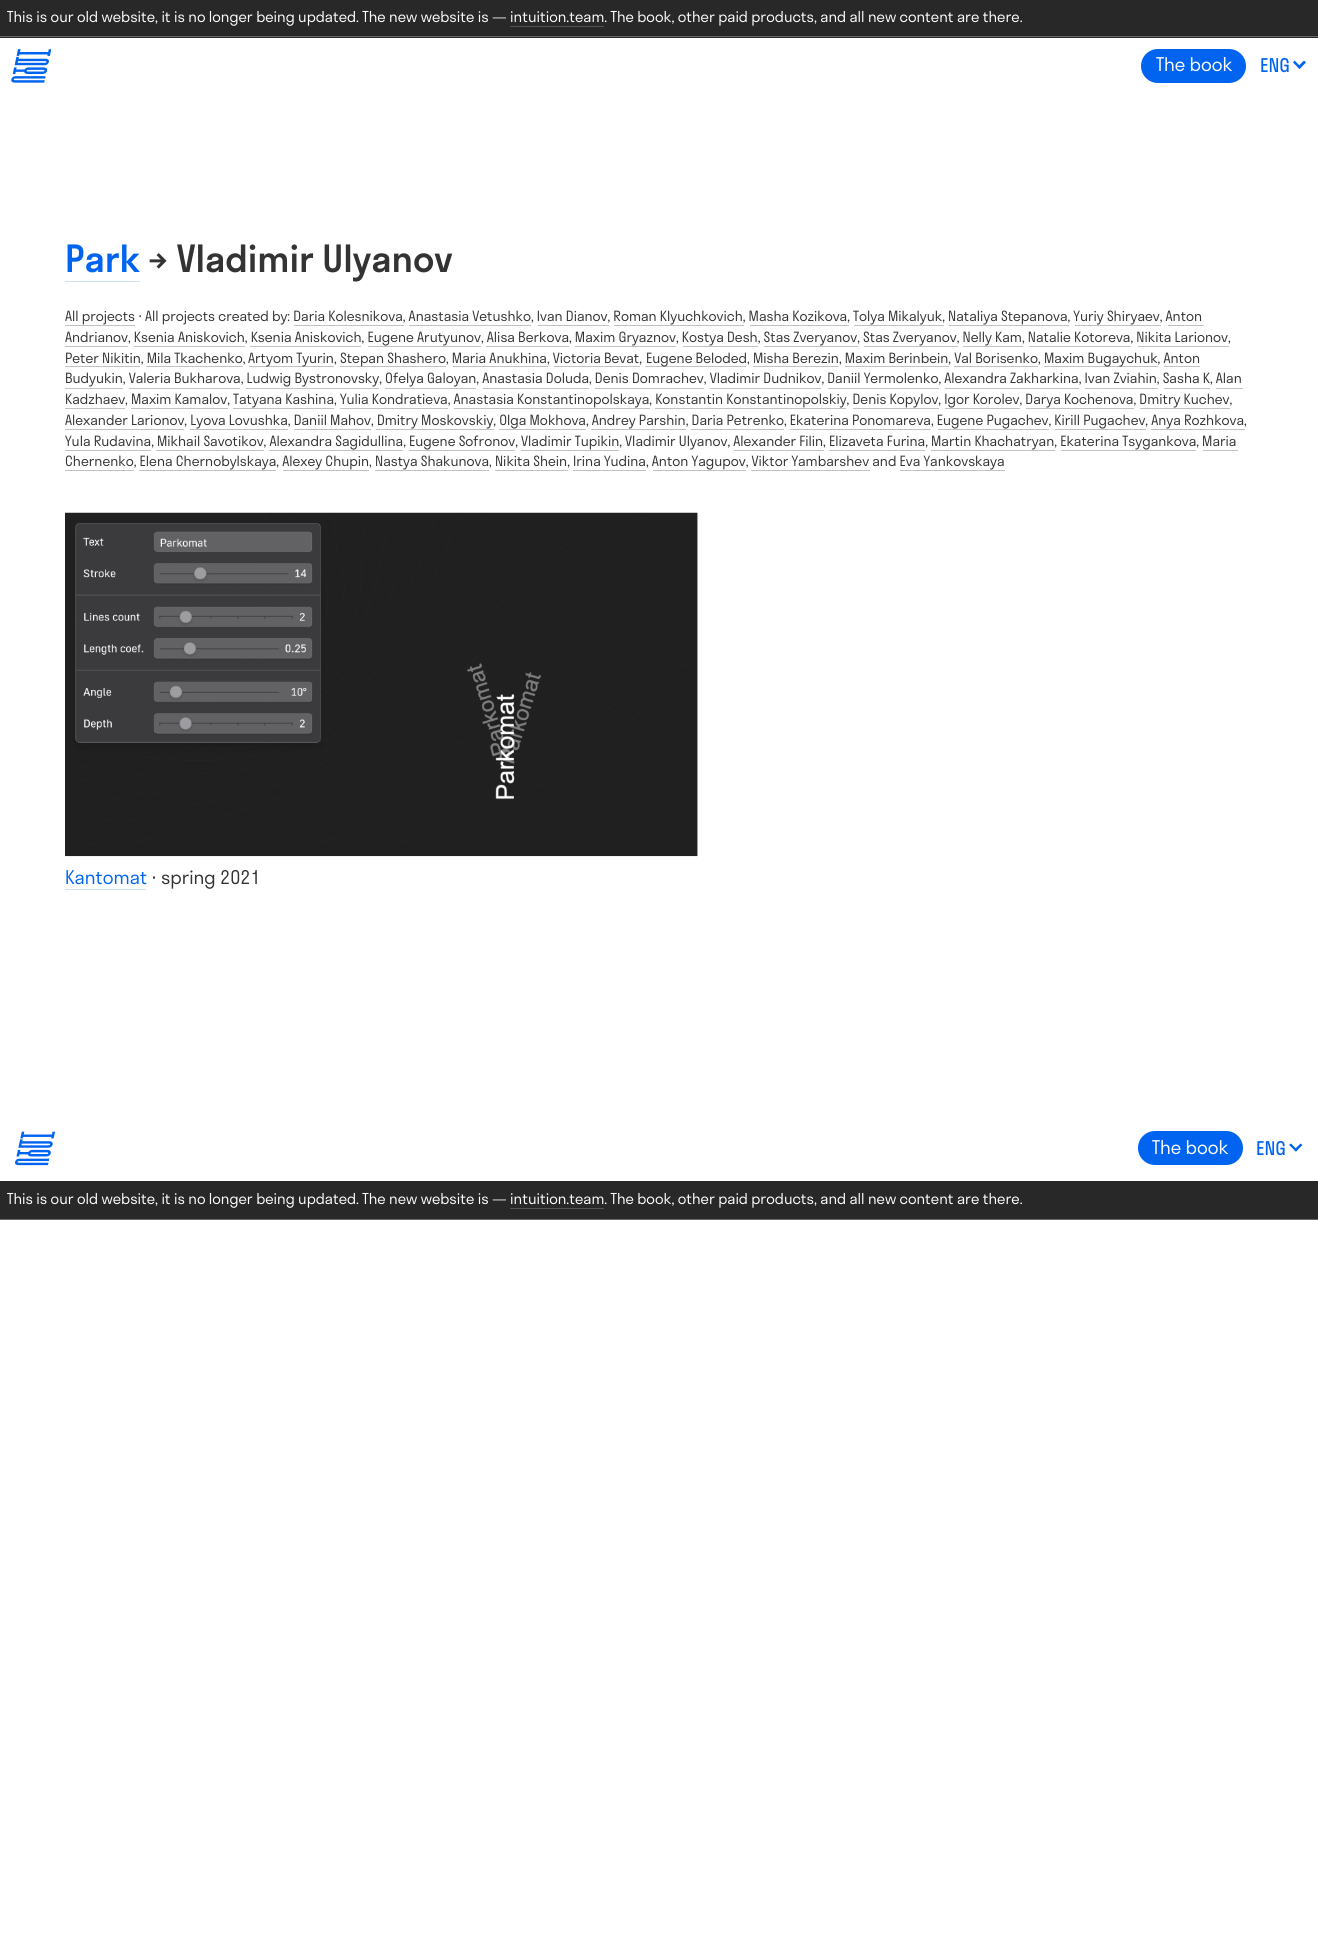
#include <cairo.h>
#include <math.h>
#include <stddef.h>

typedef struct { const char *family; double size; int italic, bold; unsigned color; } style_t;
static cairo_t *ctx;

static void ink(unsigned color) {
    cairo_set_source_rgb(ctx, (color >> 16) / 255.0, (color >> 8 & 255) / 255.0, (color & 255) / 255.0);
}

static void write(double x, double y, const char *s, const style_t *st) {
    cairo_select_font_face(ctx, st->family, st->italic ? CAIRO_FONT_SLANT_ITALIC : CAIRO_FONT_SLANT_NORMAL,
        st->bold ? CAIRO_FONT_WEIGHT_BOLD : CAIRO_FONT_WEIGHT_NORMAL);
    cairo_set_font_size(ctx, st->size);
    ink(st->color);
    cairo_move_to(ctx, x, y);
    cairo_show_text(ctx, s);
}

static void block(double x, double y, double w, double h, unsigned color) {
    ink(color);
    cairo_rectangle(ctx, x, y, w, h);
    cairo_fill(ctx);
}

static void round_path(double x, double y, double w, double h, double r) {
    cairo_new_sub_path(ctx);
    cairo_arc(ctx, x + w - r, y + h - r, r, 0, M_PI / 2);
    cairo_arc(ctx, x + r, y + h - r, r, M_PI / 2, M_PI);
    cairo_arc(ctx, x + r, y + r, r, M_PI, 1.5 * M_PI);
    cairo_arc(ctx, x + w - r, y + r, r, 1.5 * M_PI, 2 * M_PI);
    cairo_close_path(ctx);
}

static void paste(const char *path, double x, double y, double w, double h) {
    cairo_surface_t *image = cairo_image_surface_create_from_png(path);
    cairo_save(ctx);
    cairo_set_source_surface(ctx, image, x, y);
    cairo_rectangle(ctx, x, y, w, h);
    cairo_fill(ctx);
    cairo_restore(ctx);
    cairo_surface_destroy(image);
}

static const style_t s1 = {"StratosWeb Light", 14.73, 0, 0, 0xffffff};
static const style_t s2 = {"StratosWeb Light", 18.5, 0, 0, 0xffffff};
static const style_t s3 = {"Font", 18.5, 0, 0, 0x0064f0};
static const style_t s4 = {"StratosWeb Medium", 36.75, 0, 0, 0x0064f0};
static const style_t s5 = {"StratosWeb Medium", 36.75, 0, 0, 0x333333};
static const style_t s6 = {"StratosWeb Light", 13.8, 0, 0, 0x333333};
static const style_t s7 = {"DejaVu Sans", 13.8, 0, 0, 0x333333};
static const style_t s8 = {"StratosWeb Light", 18.5, 0, 0, 0x0064f0};
static const style_t s9 = {"DejaVu Sans", 18.5, 0, 0, 0x333333};
static const style_t s10 = {"StratosWeb Light", 18.5, 0, 0, 0x333333};

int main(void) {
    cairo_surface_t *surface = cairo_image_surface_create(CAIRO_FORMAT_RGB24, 1318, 1950);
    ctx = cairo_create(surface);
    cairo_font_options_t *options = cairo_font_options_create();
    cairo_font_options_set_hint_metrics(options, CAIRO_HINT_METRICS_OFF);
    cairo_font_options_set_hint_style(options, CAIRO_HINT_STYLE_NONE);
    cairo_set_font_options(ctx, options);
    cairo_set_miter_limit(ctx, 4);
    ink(0xffffff);
    cairo_paint(ctx);
    block(0, 0, 1318, 38, 0x282828);
    block(0, 36, 1318, 1, 0x696969);
    write(7, 22, "This is our old website, it is no longer being updated. The new website is — intuition.team. The book, other paid products, and all new content are there.", &s1);
    block(510, 26, 94, 1, 0x535353);
    paste("pic1.png", 11, 49, 40, 34);
    ink(0x0064f0);
    round_path(1141, 49, 105, 34, 17);
    cairo_fill(ctx);
    write(1156, 71, "The book", &s2);
    write(1260, 72, "ENG", &s3);
    cairo_new_path(ctx);
    cairo_move_to(ctx, 1304, 60.5);
    cairo_line_to(ctx, 1306, 62.5);
    cairo_line_to(ctx, 1299.5, 69);
    cairo_line_to(ctx, 1297.5, 67);
    cairo_close_path(ctx);
    cairo_fill(ctx);
    cairo_new_path(ctx);
    cairo_move_to(ctx, 1294.5, 60.5);
    cairo_line_to(ctx, 1301, 67);
    cairo_line_to(ctx, 1299.5, 69);
    cairo_line_to(ctx, 1293, 62.5);
    cairo_close_path(ctx);
    cairo_fill(ctx);
    write(65, 272, "Park", &s4);
    block(65, 281, 75, 1, 0xcce0fc);
    write(148, 272, "→ Vladimir Ulyanov", &s5);
    write(65, 321, "All projects", &s6);
    block(65, 325, 70, 1, 0xc2c2c2);
    write(138, 321, "⋅", &s7);
    write(145, 321, "All projects created by: Daria Kolesnikova, Anastasia Vetushko, Ivan Dianov, Roman Klyuchkovich, Masha Kozikova, Tolya Mikalyuk, Nataliya Stepanova, Yuriy Shiryaev, Anton", &s6);
    block(294, 325, 110, 1, 0xc2c2c2);
    block(409, 325, 122, 1, 0xc2c2c2);
    block(538, 325, 71, 1, 0xc2c2c2);
    block(614, 325, 130, 1, 0xc2c2c2);
    block(750, 325, 99, 1, 0xc2c2c2);
    block(854, 325, 90, 1, 0xc2c2c2);
    block(949, 325, 120, 1, 0xc2c2c2);
    block(1075, 325, 86, 1, 0xc2c2c2);
    write(65, 342, "Andrianov, Ksenia Aniskovich, Ksenia Aniskovich, Eugene Arutyunov, Alisa Berkova, Maxim Gryaznov, Kostya Desh, Stas Zveryanov, Stas Zveryanov, Nelly Kam, Natalie Kotoreva, Nikita Larionov,", &s6);
    block(1168, 325, 36, 1, 0xc2c2c2);
    block(65, 346, 63, 1, 0xc2c2c2);
    block(134, 346, 111, 1, 0xc2c2c2);
    block(250, 346, 111, 1, 0xc2c2c2);
    block(368, 346, 113, 1, 0xc2c2c2);
    block(486, 346, 83, 1, 0xc2c2c2);
    block(575, 346, 101, 1, 0xc2c2c2);
    block(683, 346, 75, 1, 0xc2c2c2);
    block(764, 346, 94, 1, 0xc2c2c2);
    block(864, 346, 94, 1, 0xc2c2c2);
    block(963, 346, 60, 1, 0xc2c2c2);
    block(1029, 346, 102, 1, 0xc2c2c2);
    block(1138, 346, 91, 1, 0xc2c2c2);
    write(65, 363, "Peter Nikitin, Mila Tkachenko,", &s6);
    block(65, 366, 75, 1, 0xc2c2c2);
    block(249, 366, 85, 1, 0xc2c2c2);
    write(248, 363, "Artyom Tyurin,", &s6);
    block(340, 366, 106, 1, 0xc2c2c2);
    write(340, 363, "Stepan Shashero, Maria Anukhina, Victoria Bevat,", &s6);
    block(645, 366, 101, 1, 0xc2c2c2);
    write(646, 363, "Eugene Beloded, Misha Berezin, Maxim Berinbein, Val Borisenko,", &s6);
    block(554, 366, 86, 1, 0xc2c2c2);
    block(753, 366, 86, 1, 0xc2c2c2);
    block(845, 366, 104, 1, 0xc2c2c2);
    block(954, 366, 84, 1, 0xc2c2c2);
    block(1044, 366, 114, 1, 0xc2c2c2);
    write(1044, 363, "Maxim Bugaychuk, Anton", &s6);
    block(1164, 366, 36, 1, 0xc2c2c2);
    block(146, 366, 97, 1, 0xc2c2c2);
    write(65, 383, "Budyukin, Valeria Bukharova, Ludwig Bystronovsky, Ofelya Galoyan, Anastasia Doluda, Denis Domrachev, Vladimir Dudnikov, Daniil Yermolenko, Alexandra Zakharkina, Ivan Zviahin, Sasha K, Alan", &s6);
    block(453, 366, 95, 1, 0xc2c2c2);
    block(65, 388, 58, 1, 0xc2c2c2);
    block(129, 388, 111, 1, 0xc2c2c2);
    block(246, 388, 133, 1, 0xc2c2c2);
    block(385, 388, 91, 1, 0xc2c2c2);
    block(483, 388, 106, 1, 0xc2c2c2);
    block(595, 388, 109, 1, 0xc2c2c2);
    block(710, 388, 111, 1, 0xc2c2c2);
    block(828, 388, 111, 1, 0xc2c2c2);
    block(945, 388, 134, 1, 0xc2c2c2);
    block(1085, 388, 73, 1, 0xc2c2c2);
    block(1164, 388, 46, 1, 0xc2c2c2);
    block(1216, 388, 27, 1, 0xc2c2c2);
    write(65, 404, "Kadzhaev, Maxim Kamalov, Tatyana Kashina, Yulia Kondratieva, Anastasia Konstantinopolskaya, Konstantin Konstantinopolskiy, Denis Kopylov, Igor Korolev, Darya Kochenova, Dmitry Kuchev,", &s6);
    block(65, 408, 60, 1, 0xc2c2c2);
    block(131, 408, 97, 1, 0xc2c2c2);
    block(233, 408, 101, 1, 0xc2c2c2);
    block(340, 408, 108, 1, 0xc2c2c2);
    block(454, 408, 196, 1, 0xc2c2c2);
    block(655, 408, 191, 1, 0xc2c2c2);
    block(853, 408, 86, 1, 0xc2c2c2);
    block(945, 408, 75, 1, 0xc2c2c2);
    block(1026, 408, 108, 1, 0xc2c2c2);
    block(1140, 408, 90, 1, 0xc2c2c2);
    write(65, 425, "Alexander Larionov, Lyova Lovushka, Daniil Mahov, Dmitry Moskovskiy, Olga Mokhova, Andrey Parshin, Daria Petrenko, Ekaterina Ponomareva, Eugene Pugachev, Kirill Pugachev, Anya Rozhkova,", &s6);
    block(65, 429, 119, 1, 0xc2c2c2);
    block(190, 429, 98, 1, 0xc2c2c2);
    block(294, 429, 77, 1, 0xc2c2c2);
    block(376, 429, 118, 1, 0xc2c2c2);
    block(499, 429, 87, 1, 0xc2c2c2);
    block(591, 429, 95, 1, 0xc2c2c2);
    block(691, 429, 93, 1, 0xc2c2c2);
    block(790, 429, 141, 1, 0xc2c2c2);
    block(938, 429, 111, 1, 0xc2c2c2);
    block(1055, 429, 91, 1, 0xc2c2c2);
    block(1151, 429, 94, 1, 0xc2c2c2);
    write(65, 446, "Yula Rudavina, Mikhail Savotikov, Alexandra Sagidullina, Eugene Sofronov, Vladimir Tupikin, Vladimir Ulyanov, Alexander Filin, Elizaveta Furina, Martin Khachatryan, Ekaterina Tsygankova, Maria", &s6);
    block(65, 450, 86, 1, 0xc2c2c2);
    block(156, 450, 108, 1, 0xc2c2c2);
    block(269, 450, 134, 1, 0xc2c2c2);
    block(409, 450, 106, 1, 0xc2c2c2);
    block(521, 450, 98, 1, 0xc2c2c2);
    block(734, 450, 90, 1, 0xc2c2c2);
    block(829, 450, 96, 1, 0xc2c2c2);
    block(931, 450, 124, 1, 0xc2c2c2);
    block(1061, 450, 135, 1, 0xc2c2c2);
    block(1203, 450, 35, 1, 0xc2c2c2);
    write(65, 466, "Chernenko, Elena Chernobylskaya, Alexey Chupin, Nastya Shakunova, Nikita Shein, Irina Yudina, Anton Yagupov, Viktor Yambarshev and Eva Yankovskaya", &s6);
    block(65, 470, 69, 1, 0xc2c2c2);
    block(139, 470, 137, 1, 0xc2c2c2);
    block(283, 470, 86, 1, 0xc2c2c2);
    block(375, 470, 114, 1, 0xc2c2c2);
    block(495, 470, 73, 1, 0xc2c2c2);
    block(573, 470, 73, 1, 0xc2c2c2);
    block(653, 470, 93, 1, 0xc2c2c2);
    block(751, 470, 119, 1, 0xc2c2c2);
    block(900, 470, 105, 1, 0xc2c2c2);
    paste("pic2.png", 65, 512, 633, 345);
    paste("pic3.png", 697, 512, 1, 344);
    write(65, 884, "Kantomat", &s8);
    block(65, 889, 81, 1, 0xcce0fc);
    write(151, 884, "⋅", &s9);
    write(161, 884, "spring 2021", &s10);
    paste("pic4.png", 15, 1131, 40, 35);
    ink(0x0064f0);
    round_path(1138, 1131, 105, 34, 17);
    cairo_fill(ctx);
    write(1152, 1154, "The book", &s2);
    write(1256, 1155, "ENG", &s3);
    cairo_new_path(ctx);
    cairo_move_to(ctx, 1300.5, 1143.5);
    cairo_line_to(ctx, 1302.5, 1145);
    cairo_line_to(ctx, 1296, 1151.5);
    cairo_line_to(ctx, 1294, 1150);
    cairo_close_path(ctx);
    cairo_fill(ctx);
    cairo_new_path(ctx);
    cairo_move_to(ctx, 1291, 1143.5);
    cairo_line_to(ctx, 1297.5, 1150);
    cairo_line_to(ctx, 1296, 1151.5);
    cairo_line_to(ctx, 1289, 1145);
    cairo_close_path(ctx);
    cairo_fill(ctx);
    block(0, 1181, 1318, 38, 0x282828);
    block(0, 1219, 1318, 1, 0x696969);
    write(7, 1204, "This is our old website, it is no longer being updated. The new website is — intuition.team. The book, other paid products, and all new content are there.", &s1);
    block(510, 1208, 94, 1, 0x535353);
    cairo_surface_write_to_png(surface, "screenshot.png");
    cairo_font_options_destroy(options);
    cairo_destroy(ctx);
    cairo_surface_destroy(surface);
    return 0;
}
